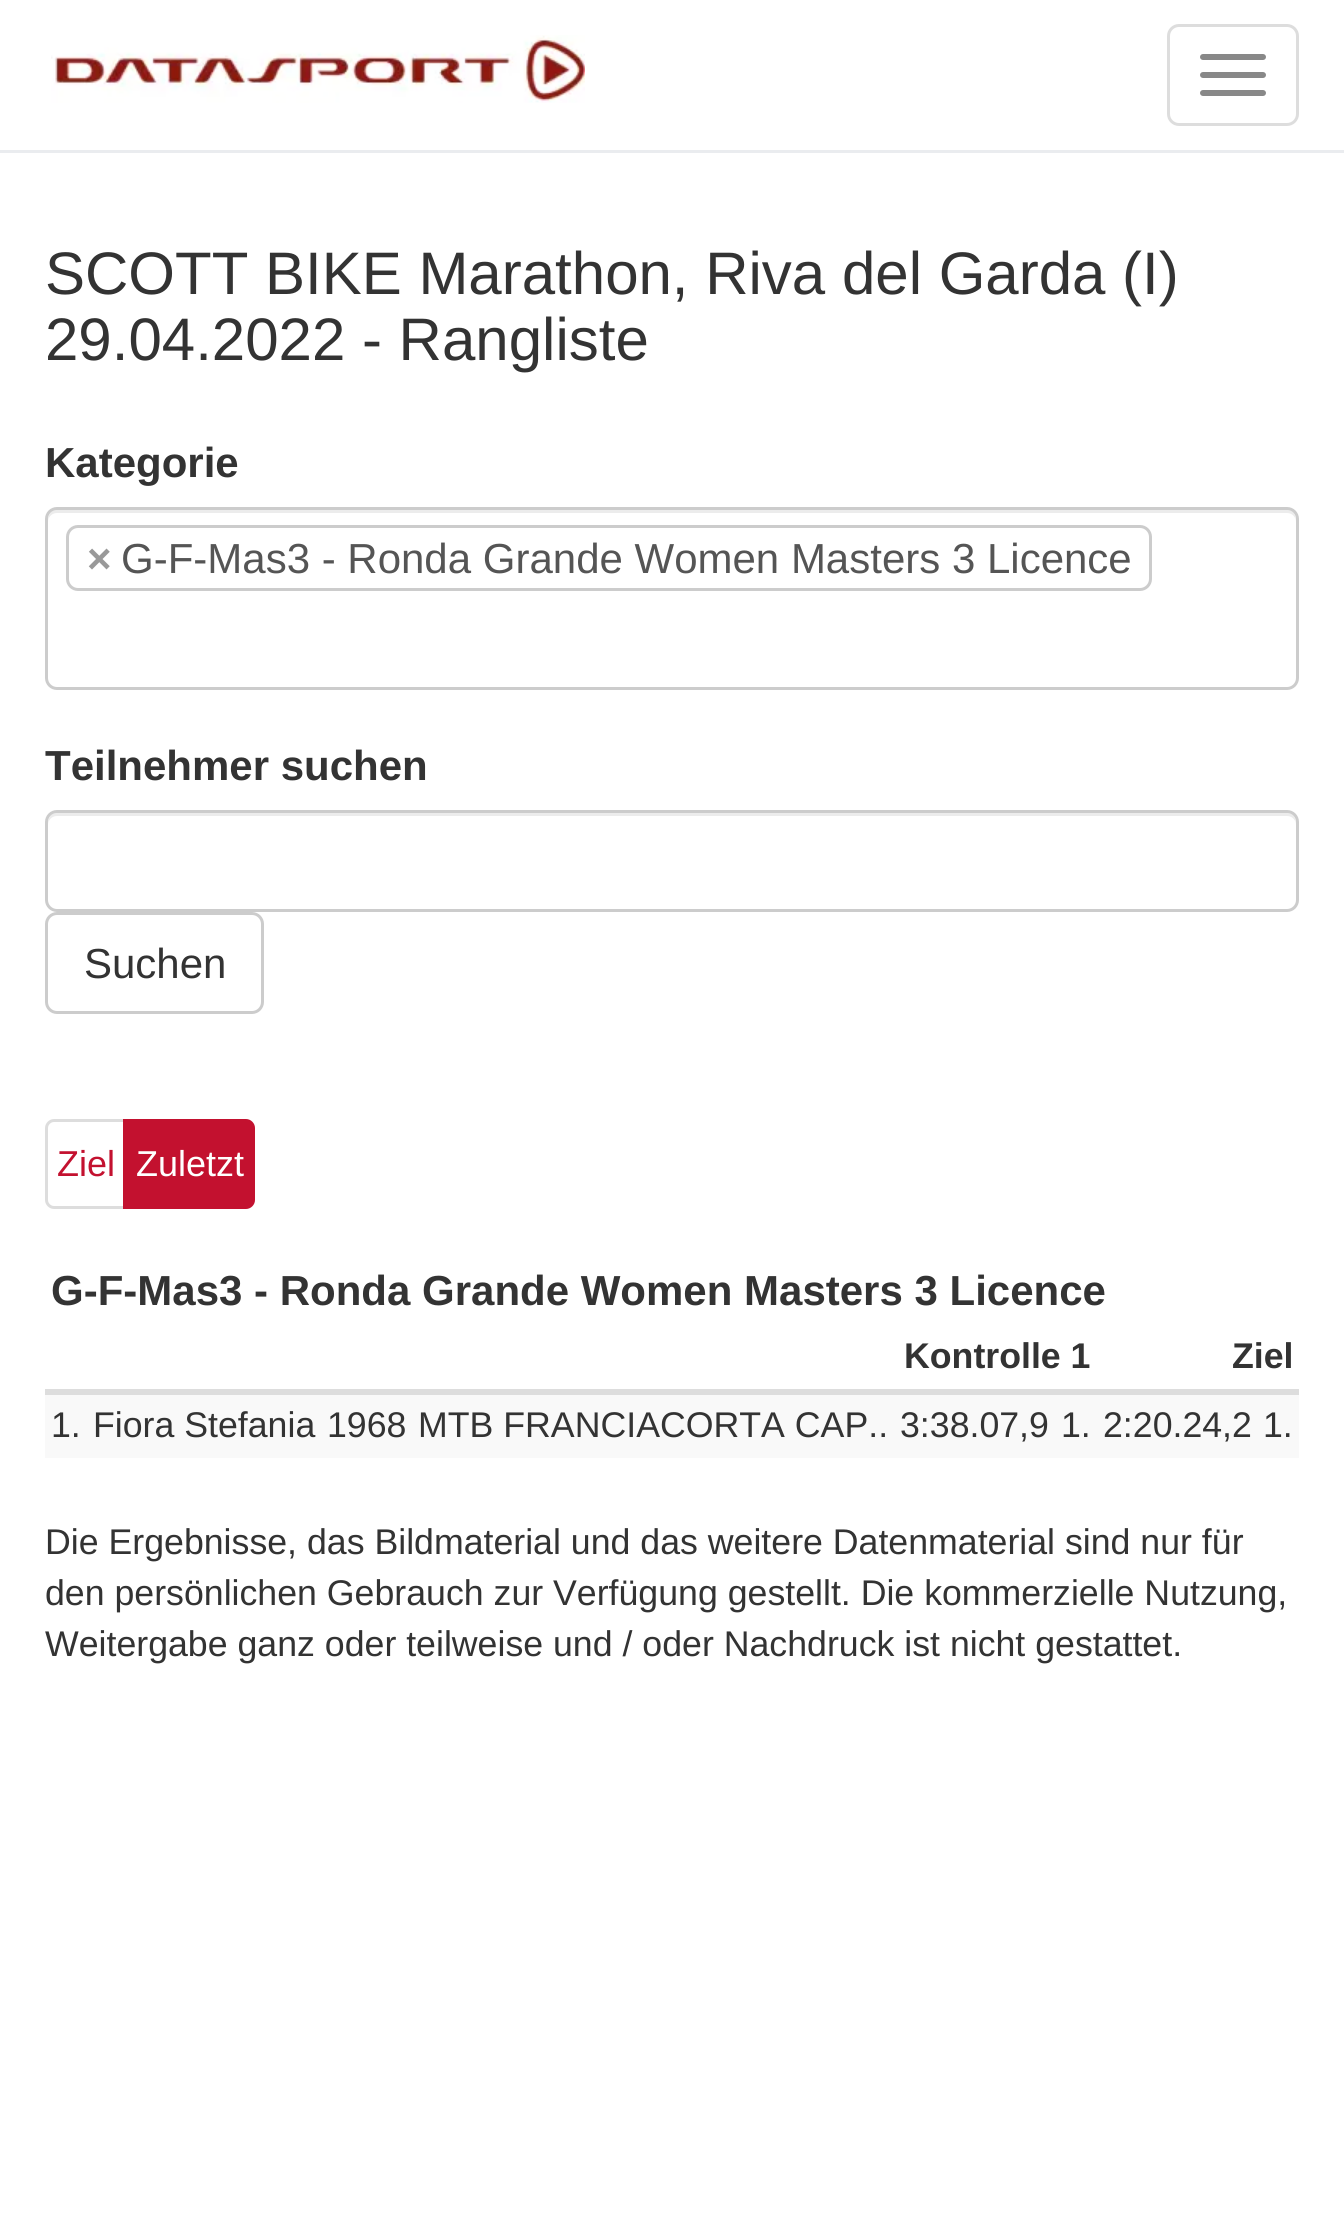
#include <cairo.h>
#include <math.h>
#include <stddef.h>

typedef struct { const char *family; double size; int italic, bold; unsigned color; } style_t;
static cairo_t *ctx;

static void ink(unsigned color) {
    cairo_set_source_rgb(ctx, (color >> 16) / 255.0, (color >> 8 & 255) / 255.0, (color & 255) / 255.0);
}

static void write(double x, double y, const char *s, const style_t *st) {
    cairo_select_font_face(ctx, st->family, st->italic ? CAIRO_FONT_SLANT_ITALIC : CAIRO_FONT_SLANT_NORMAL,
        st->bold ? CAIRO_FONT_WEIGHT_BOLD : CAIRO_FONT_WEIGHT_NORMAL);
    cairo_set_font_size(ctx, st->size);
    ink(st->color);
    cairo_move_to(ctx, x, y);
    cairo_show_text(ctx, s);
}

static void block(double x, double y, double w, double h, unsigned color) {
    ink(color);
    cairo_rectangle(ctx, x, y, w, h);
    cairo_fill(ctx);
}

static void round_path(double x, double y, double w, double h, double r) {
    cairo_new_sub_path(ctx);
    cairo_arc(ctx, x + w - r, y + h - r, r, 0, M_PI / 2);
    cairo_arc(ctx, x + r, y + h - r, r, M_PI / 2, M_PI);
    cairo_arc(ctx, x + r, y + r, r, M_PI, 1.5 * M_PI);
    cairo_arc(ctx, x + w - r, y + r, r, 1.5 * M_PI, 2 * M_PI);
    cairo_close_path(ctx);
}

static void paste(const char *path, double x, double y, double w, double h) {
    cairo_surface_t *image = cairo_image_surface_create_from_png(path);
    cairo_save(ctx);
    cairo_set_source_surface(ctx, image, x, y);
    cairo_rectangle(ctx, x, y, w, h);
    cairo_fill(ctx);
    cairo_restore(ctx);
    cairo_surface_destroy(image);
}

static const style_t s1 = {"Liberation Sans", 60, 0, 0, 0x333333};
static const style_t s2 = {"Liberation Sans", 42, 0, 1, 0x333333};
static const style_t s3 = {"Liberation Sans", 42, 0, 1, 0x999999};
static const style_t s4 = {"Liberation Sans", 42, 0, 0, 0x555555};
static const style_t s5 = {"Liberation Sans", 42, 0, 0, 0x333333};
static const style_t s6 = {"Liberation Sans", 36, 0, 0, 0xc3112f};
static const style_t s7 = {"Liberation Sans", 36, 0, 0, 0xffffff};
static const style_t s8 = {"Liberation Sans", 35.7, 0, 1, 0x333333};
static const style_t s9 = {"Liberation Sans", 35.7, 0, 0, 0x333333};

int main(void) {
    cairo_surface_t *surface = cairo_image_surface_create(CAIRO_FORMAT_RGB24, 1344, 2237);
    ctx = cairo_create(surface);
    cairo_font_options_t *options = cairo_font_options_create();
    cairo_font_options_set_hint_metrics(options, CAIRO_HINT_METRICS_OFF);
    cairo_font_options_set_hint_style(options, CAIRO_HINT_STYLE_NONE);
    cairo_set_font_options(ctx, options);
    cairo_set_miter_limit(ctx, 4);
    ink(0xffffff);
    cairo_paint(ctx);
    block(0, 150, 1344, 3, 0xeaecef);
    paste("pic1.png", 51, 35, 534, 68);
    round_path(1168.5, 25.5, 129, 99, 10.5);
    ink(0xdddddd);
    cairo_set_line_width(ctx, 3);
    cairo_stroke(ctx);
    ink(0x888888);
    round_path(1200, 54, 66, 6, 3);
    cairo_fill(ctx);
    round_path(1200, 72, 66, 6, 3);
    cairo_fill(ctx);
    round_path(1200, 90, 66, 6, 3);
    cairo_fill(ctx);
    write(45, 294, "SCOTT BIKE Marathon, Riva del Garda (I)", &s1);
    write(45, 360, "29.04.2022 - Rangliste", &s1);
    write(45, 477, "Kategorie", &s2);
    ink(0xececec);
    cairo_new_path(ctx);
    cairo_move_to(ctx, 57, 513);
    cairo_line_to(ctx, 1287, 513);
    cairo_curve_to(ctx, 1292, 513, 1296, 517, 1296, 522);
    cairo_curve_to(ctx, 1296, 516, 1294, 510, 1287, 510);
    cairo_line_to(ctx, 57, 510);
    cairo_curve_to(ctx, 50, 510, 48, 516, 48, 522);
    cairo_curve_to(ctx, 48, 517, 52, 513, 57, 513);
    cairo_close_path(ctx);
    cairo_fill(ctx);
    round_path(46.5, 508.5, 1251, 180, 10.5);
    ink(0xcccccc);
    cairo_stroke(ctx);
    round_path(67.5, 526.5, 1083, 63, 10.5);
    cairo_stroke(ctx);
    write(87, 573, "×", &s3);
    write(121, 573, "G-F-Mas3 - Ronda Grande Women Masters 3 Licence", &s4);
    write(45, 780, "Teilnehmer suchen", &s2);
    ink(0xececec);
    cairo_new_path(ctx);
    cairo_move_to(ctx, 57, 816);
    cairo_line_to(ctx, 1287, 816);
    cairo_curve_to(ctx, 1292, 816, 1296, 820, 1296, 825);
    cairo_curve_to(ctx, 1296, 819, 1294, 813, 1287, 813);
    cairo_line_to(ctx, 57, 813);
    cairo_curve_to(ctx, 50, 813, 48, 819, 48, 825);
    cairo_curve_to(ctx, 48, 820, 52, 816, 57, 816);
    cairo_close_path(ctx);
    cairo_fill(ctx);
    round_path(46.5, 811.5, 1251, 99, 10.5);
    ink(0xcccccc);
    cairo_stroke(ctx);
    round_path(46.5, 913.5, 216, 99, 10.5);
    cairo_stroke(ctx);
    write(84, 978, "Suchen", &s5);
    cairo_new_path(ctx);
    cairo_move_to(ctx, 54, 1120.5);
    cairo_line_to(ctx, 124.5, 1120.5);
    cairo_line_to(ctx, 124.5, 1207.5);
    cairo_line_to(ctx, 54, 1207.5);
    cairo_curve_to(ctx, 50, 1207.5, 46.5, 1204, 46.5, 1200);
    cairo_line_to(ctx, 46.5, 1128);
    cairo_curve_to(ctx, 46.5, 1124, 50, 1120.5, 54, 1120.5);
    cairo_close_path(ctx);
    ink(0xdddddd);
    cairo_stroke(ctx);
    write(57, 1176, "Ziel", &s6);
    cairo_new_path(ctx);
    cairo_move_to(ctx, 124.5, 1120.5);
    cairo_line_to(ctx, 246, 1120.5);
    cairo_curve_to(ctx, 250, 1120.5, 253.5, 1124, 253.5, 1128);
    cairo_line_to(ctx, 253.5, 1200);
    cairo_curve_to(ctx, 253.5, 1204, 250, 1207.5, 246, 1207.5);
    cairo_line_to(ctx, 124.5, 1207.5);
    cairo_close_path(ctx);
    cairo_fill_preserve(ctx);
    cairo_stroke(ctx);
    write(136, 1176, "Zuletzt", &s7);
    write(51, 1305, "G-F-Mas3 - Ronda Grande Women Masters 3 Licence", &s2);
    write(904, 1368, "Kontrolle 1", &s8);
    block(45, 1389, 1254, 6, 0xdddddd);
    write(1232, 1368, "Ziel", &s8);
    block(45, 1395, 1254, 63, 0xf9f9f9);
    write(51, 1437, "1.", &s9);
    write(93, 1437, "Fiora Stefania", &s9);
    write(327, 1437, "1968", &s9);
    write(418, 1437, "MTB FRANCIACORTA CAP..", &s9);
    write(900, 1437, "3:38.07,9", &s9);
    write(1061, 1437, "1.", &s9);
    write(1103, 1437, "2:20.24,2", &s9);
    write(1263, 1437, "1.", &s9);
    write(45, 1554, "Die Ergebnisse, das Bildmaterial und das weitere Datenmaterial sind nur für", &s9);
    write(45, 1605, "den persönlichen Gebrauch zur Verfügung gestellt. Die kommerzielle Nutzung,", &s9);
    write(45, 1656, "Weitergabe ganz oder teilweise und / oder Nachdruck ist nicht gestattet.", &s9);
    cairo_surface_write_to_png(surface, "screenshot.png");
    cairo_font_options_destroy(options);
    cairo_destroy(ctx);
    cairo_surface_destroy(surface);
    return 0;
}
